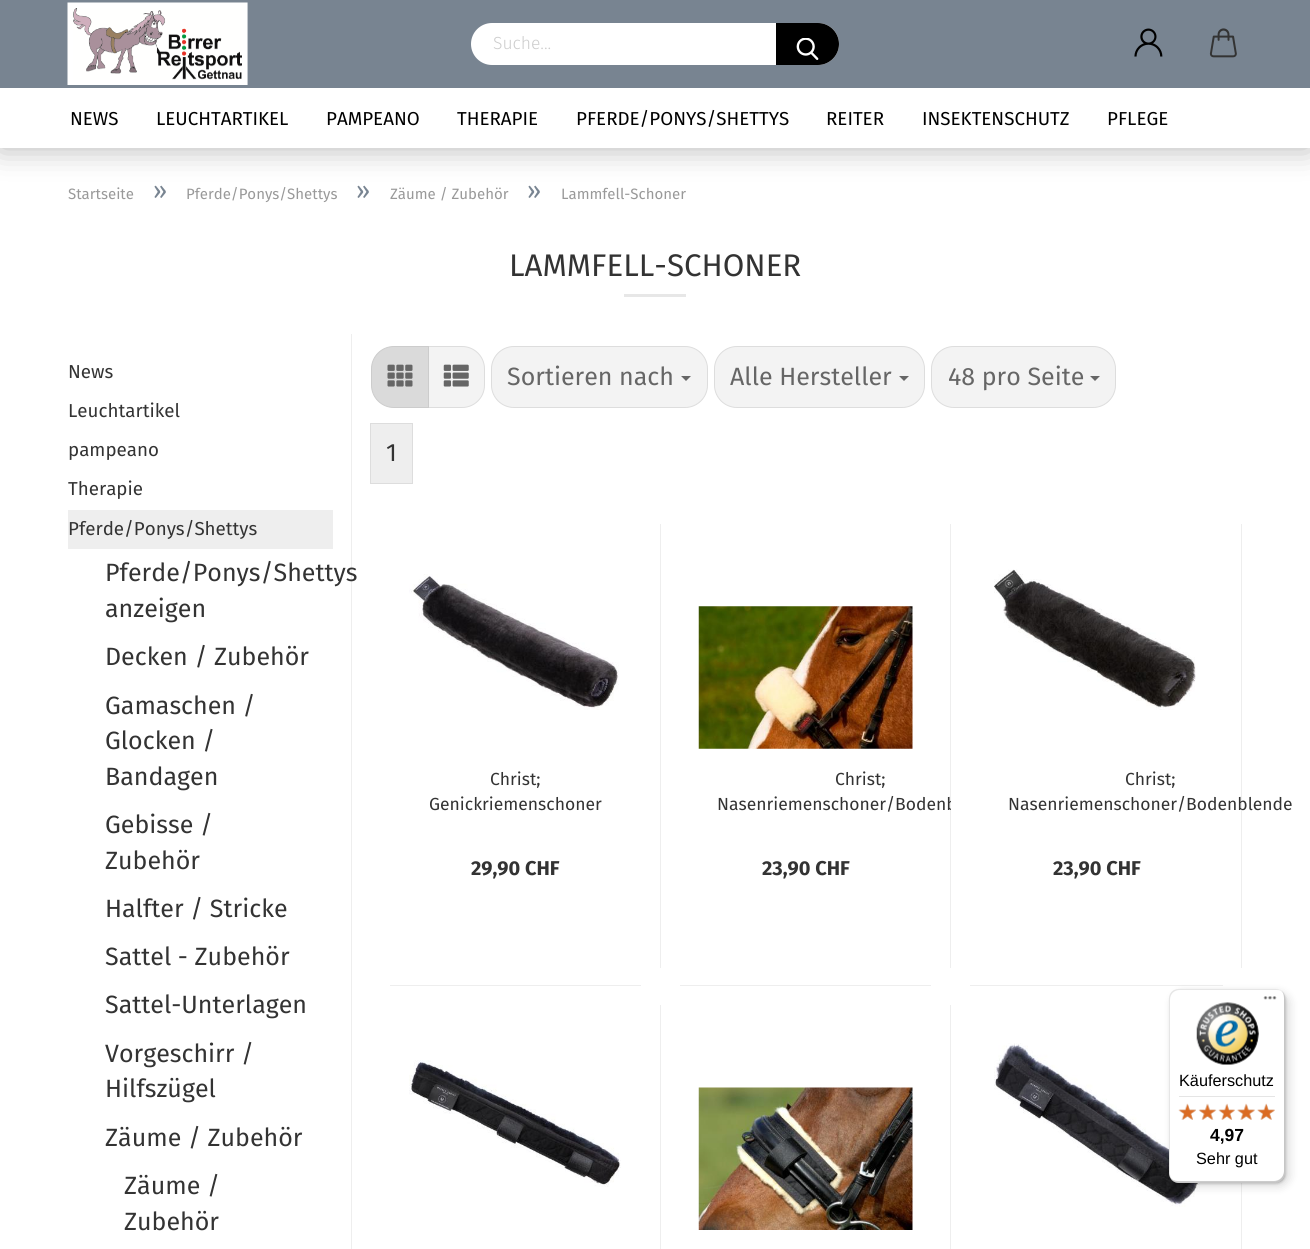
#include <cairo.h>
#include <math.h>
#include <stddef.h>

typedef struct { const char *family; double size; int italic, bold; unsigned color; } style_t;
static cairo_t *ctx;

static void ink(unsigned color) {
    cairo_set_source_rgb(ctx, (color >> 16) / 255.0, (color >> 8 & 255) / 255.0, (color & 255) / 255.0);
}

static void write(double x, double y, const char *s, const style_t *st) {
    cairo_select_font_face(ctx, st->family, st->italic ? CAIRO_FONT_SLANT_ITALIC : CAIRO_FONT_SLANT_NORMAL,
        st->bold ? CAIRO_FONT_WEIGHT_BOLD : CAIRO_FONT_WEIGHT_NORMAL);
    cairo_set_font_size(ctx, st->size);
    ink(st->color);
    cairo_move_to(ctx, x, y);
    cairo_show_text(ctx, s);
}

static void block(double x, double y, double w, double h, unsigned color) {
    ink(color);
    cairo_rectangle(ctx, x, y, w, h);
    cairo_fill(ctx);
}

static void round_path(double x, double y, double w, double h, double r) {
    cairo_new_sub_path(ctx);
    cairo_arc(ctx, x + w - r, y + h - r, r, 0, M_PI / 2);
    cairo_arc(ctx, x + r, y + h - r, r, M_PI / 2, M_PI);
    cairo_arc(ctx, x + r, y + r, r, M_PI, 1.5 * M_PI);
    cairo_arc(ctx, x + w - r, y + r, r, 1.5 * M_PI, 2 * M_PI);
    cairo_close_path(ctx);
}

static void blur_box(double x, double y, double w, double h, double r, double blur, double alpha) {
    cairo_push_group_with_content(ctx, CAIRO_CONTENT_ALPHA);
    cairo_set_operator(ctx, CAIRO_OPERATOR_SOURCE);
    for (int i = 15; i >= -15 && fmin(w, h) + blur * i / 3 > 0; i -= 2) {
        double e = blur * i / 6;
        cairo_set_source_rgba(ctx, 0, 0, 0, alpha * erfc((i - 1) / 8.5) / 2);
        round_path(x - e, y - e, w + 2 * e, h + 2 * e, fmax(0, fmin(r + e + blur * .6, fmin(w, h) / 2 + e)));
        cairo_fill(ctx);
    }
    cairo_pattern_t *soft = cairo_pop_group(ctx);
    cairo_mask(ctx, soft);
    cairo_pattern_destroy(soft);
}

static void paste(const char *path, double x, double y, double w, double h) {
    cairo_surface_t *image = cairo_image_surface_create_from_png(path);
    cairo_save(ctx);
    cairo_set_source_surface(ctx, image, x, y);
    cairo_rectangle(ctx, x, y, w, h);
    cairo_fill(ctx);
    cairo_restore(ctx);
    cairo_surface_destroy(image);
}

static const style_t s1 = {"Fira Sans Light", 17.5, 0, 0, 0xcccccc};
static const style_t s2 = {"Fira Sans", 18.75, 0, 0, 0x000000};
static const style_t s3 = {"Fira Sans", 15, 0, 0, 0x999999};
static const style_t s4 = {"Fira Sans", 25, 0, 0, 0x788491};
static const style_t s5 = {"Fira Sans", 31.25, 0, 0, 0x333333};
static const style_t s6 = {"Fira Sans", 18.75, 0, 0, 0x333333};
static const style_t s7 = {"Fira Sans", 25, 0, 0, 0x333333};
static const style_t s8 = {"Fira Sans", 25, 0, 0, 0x666666};
static const style_t s9 = {"Fira Sans", 17.5, 0, 0, 0x333333};
static const style_t s10 = {"Fira Sans", 20, 0, 1, 0x333333};
static const style_t s11 = {"Liberation Sans", 16.25, 0, 0, 0x000000};
static const style_t s12 = {"Liberation Sans", 17.5, 0, 1, 0x000000};

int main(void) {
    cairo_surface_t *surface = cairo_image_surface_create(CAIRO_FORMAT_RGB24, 1310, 1249);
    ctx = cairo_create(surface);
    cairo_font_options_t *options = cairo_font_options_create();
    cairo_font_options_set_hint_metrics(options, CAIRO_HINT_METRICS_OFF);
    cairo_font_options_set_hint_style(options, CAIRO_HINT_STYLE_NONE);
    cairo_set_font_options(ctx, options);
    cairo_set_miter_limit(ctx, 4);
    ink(0xffffff);
    cairo_paint(ctx);
    ink(0x000000);
    blur_box(0, 0, 1310, 148, 0, 15.5, 0.3);
    block(0, 0, 1310, 88, 0x788491);
    paste("pic1.png", 67, 2, 181, 83);
    ink(0xffffff);
    round_path(472.5, 24.5, 365, 39, 19.5);
    cairo_fill_preserve(ctx);
    cairo_set_line_width(ctx, 3);
    cairo_stroke(ctx);
    write(493, 49, "Suche...", &s1);
    ink(0x000000);
    cairo_new_path(ctx);
    cairo_move_to(ctx, 776, 23);
    cairo_line_to(ctx, 818, 23);
    cairo_curve_to(ctx, 829.5, 23, 839, 32.5, 839, 44);
    cairo_curve_to(ctx, 839, 55.5, 829.5, 65, 818, 65);
    cairo_line_to(ctx, 776, 65);
    cairo_close_path(ctx);
    cairo_fill(ctx);
    paste("pic2.png", 796, 38, 23, 22);
    paste("pic3.png", 1134, 28, 29, 29);
    paste("pic4.png", 1209, 28, 28, 30);
    block(0, 88, 1310, 60, 0xffffff);
    write(70, 125, "NEWS", &s2);
    write(156, 125, "LEUCHTARTIKEL", &s2);
    write(326, 125, "PAMPEANO", &s2);
    write(457, 125, "THERAPIE", &s2);
    write(576, 125, "PFERDE/PONYS/SHETTYS", &s2);
    write(826, 125, "REITER", &s2);
    write(922, 125, "INSEKTENSCHUTZ", &s2);
    write(1107, 125, "PFLEGE", &s2);
    write(68, 199, "Startseite", &s3);
    write(153, 199, "»", &s4);
    write(186, 199, "Pferde/Ponys/Shettys", &s3);
    write(356, 199, "»", &s4);
    write(390, 199, "Zäume / Zubehör", &s3);
    write(527, 199, "»", &s4);
    write(561, 199, "Lammfell-Schoner", &s3);
    write(509, 276, "LAMMFELL-SCHONER", &s5);
    block(624, 294, 62, 3, 0xe7e7e7);
    block(351, 334, 1, 915, 0xeeeeee);
    write(68, 378, "News", &s6);
    write(68, 417, "Leuchtartikel", &s6);
    write(68, 456, "pampeano", &s6);
    write(68, 495, "Therapie", &s6);
    block(68, 510, 265, 39, 0xeeeeee);
    write(68, 535, "Pferde/Ponys/Shettys", &s6);
    write(105, 581, "Pferde/Ponys/Shettys", &s7);
    write(105, 617, "anzeigen", &s7);
    write(105, 665, "Decken / Zubehör", &s7);
    write(105, 714, "Gamaschen /", &s7);
    write(105, 749, "Glocken /", &s7);
    write(105, 785, "Bandagen", &s7);
    write(105, 833, "Gebisse /", &s7);
    write(105, 869, "Zubehör", &s7);
    write(105, 917, "Halfter / Stricke", &s7);
    write(105, 965, "Sattel - Zubehör", &s7);
    write(105, 1013, "Sattel-Unterlagen", &s7);
    write(105, 1062, "Vorgeschirr /", &s7);
    write(105, 1097, "Hilfszügel", &s7);
    write(105, 1146, "Zäume / Zubehör", &s7);
    write(124, 1194, "Zäume /", &s7);
    write(124, 1230, "Zubehör", &s7);
    ink(0xf3f3f3);
    cairo_new_path(ctx);
    cairo_move_to(ctx, 428.5, 346.5);
    cairo_line_to(ctx, 462, 346.5);
    cairo_curve_to(ctx, 474.5, 346.5, 484.5, 356.5, 484.5, 369);
    cairo_line_to(ctx, 484.5, 385);
    cairo_curve_to(ctx, 484.5, 397.5, 474.5, 407.5, 462, 407.5);
    cairo_line_to(ctx, 428.5, 407.5);
    cairo_close_path(ctx);
    cairo_fill_preserve(ctx);
    ink(0xdddddd);
    cairo_set_line_width(ctx, 1);
    cairo_stroke(ctx);
    ink(0xdadada);
    cairo_new_path(ctx);
    cairo_move_to(ctx, 394, 346.5);
    cairo_line_to(ctx, 428.5, 346.5);
    cairo_line_to(ctx, 428.5, 407.5);
    cairo_line_to(ctx, 394, 407.5);
    cairo_curve_to(ctx, 381.5, 407.5, 371.5, 397.5, 371.5, 385);
    cairo_line_to(ctx, 371.5, 369);
    cairo_curve_to(ctx, 371.5, 356.5, 381.5, 346.5, 394, 346.5);
    cairo_close_path(ctx);
    cairo_fill_preserve(ctx);
    ink(0xcccccc);
    cairo_stroke(ctx);
    paste("pic5.png", 387, 364, 26, 23);
    paste("pic6.png", 443, 364, 26, 23);
    ink(0xf3f3f3);
    round_path(491.5, 346.5, 216, 61, 22.5);
    cairo_fill_preserve(ctx);
    ink(0xdddddd);
    cairo_stroke(ctx);
    write(507, 385, "Sortieren nach", &s8);
    cairo_new_path(ctx);
    cairo_move_to(ctx, 681, 376);
    cairo_line_to(ctx, 691, 376);
    cairo_line_to(ctx, 686, 381);
    cairo_close_path(ctx);
    cairo_fill(ctx);
    ink(0xf3f3f3);
    round_path(714.5, 346.5, 210, 61, 22.5);
    cairo_fill_preserve(ctx);
    ink(0xdddddd);
    cairo_stroke(ctx);
    write(730, 385, "Alle Hersteller", &s8);
    cairo_new_path(ctx);
    cairo_move_to(ctx, 899, 376);
    cairo_line_to(ctx, 909, 376);
    cairo_line_to(ctx, 904, 381);
    cairo_close_path(ctx);
    cairo_fill(ctx);
    ink(0xf3f3f3);
    round_path(931.5, 346.5, 184, 61, 22.5);
    cairo_fill_preserve(ctx);
    ink(0xdddddd);
    cairo_stroke(ctx);
    write(948, 385, "48 pro Seite", &s8);
    cairo_new_path(ctx);
    cairo_move_to(ctx, 1090, 376);
    cairo_line_to(ctx, 1100, 376);
    cairo_line_to(ctx, 1095, 381);
    cairo_close_path(ctx);
    cairo_fill(ctx);
    ink(0xeeeeee);
    cairo_rectangle(ctx, 370.5, 423.5, 42, 60);
    cairo_fill_preserve(ctx);
    ink(0xdddddd);
    cairo_stroke(ctx);
    write(386, 461, "1", &s7);
    block(660, 524, 1, 444, 0xeeeeee);
    block(390, 985, 251, 1, 0xeeeeee);
    paste("pic7.png", 409, 574, 210, 136);
    write(490, 785, "Christ;", &s9);
    write(429, 810, "Genickriemenschoner", &s9);
    write(471, 875, "29,90 CHF", &s10);
    block(950, 524, 1, 444, 0xeeeeee);
    block(680, 985, 251, 1, 0xeeeeee);
    paste("pic8.png", 698, 606, 215, 143);
    write(835, 785, "Christ;", &s9);
    write(717, 810, "Nasenriemenschoner/Bodenb", &s9);
    write(762, 875, "23,90 CHF", &s10);
    block(951, 800, 5, 11, 0xffffff);
    block(1241, 524, 1, 444, 0xeeeeee);
    block(970, 985, 253, 1, 0xeeeeee);
    paste("pic9.png", 994, 569, 202, 141);
    write(1125, 785, "Christ;", &s9);
    write(1008, 810, "Nasenriemenschoner/Bodenblende", &s9);
    write(1053, 875, "23,90 CHF", &s10);
    block(660, 1005, 1, 244, 0xeeeeee);
    paste("pic10.png", 409, 1060, 212, 127);
    block(950, 1005, 1, 244, 0xeeeeee);
    paste("pic11.png", 698, 1087, 215, 143);
    block(1241, 1183, 1, 66, 0xeeeeee);
    paste("pic12.png", 994, 1043, 207, 164);
    ink(0x000000);
    blur_box(1173, 993, 116, 193, 10, 5, 0.15);
    blur_box(1170, 990, 116, 194, 10, 1, 0.15);
    ink(0xffffff);
    round_path(1169, 989, 116, 194, 10);
    cairo_fill(ctx);
    cairo_set_source_rgba(ctx, 0, 0, 0, 0.1);
    cairo_new_path(ctx);
    cairo_move_to(ctx, 1180, 990);
    cairo_line_to(ctx, 1276, 990);
    cairo_curve_to(ctx, 1278, 990, 1280, 990, 1281, 991);
    cairo_curve_to(ctx, 1280, 990, 1277, 989, 1275, 989);
    cairo_line_to(ctx, 1179, 989);
    cairo_curve_to(ctx, 1173, 989, 1169, 993, 1169, 999);
    cairo_line_to(ctx, 1169, 1173);
    cairo_curve_to(ctx, 1169, 1176, 1170, 1179, 1173, 1181);
    cairo_curve_to(ctx, 1171, 1179, 1170, 1176, 1170, 1174);
    cairo_line_to(ctx, 1170, 1000);
    cairo_curve_to(ctx, 1170, 994, 1174, 990, 1180, 990);
    cairo_close_path(ctx);
    cairo_fill(ctx);
    cairo_set_source_rgba(ctx, 0, 0, 0, 0.2);
    cairo_new_path(ctx);
    cairo_move_to(ctx, 1170, 1177);
    cairo_curve_to(ctx, 1172, 1181, 1175, 1183, 1179, 1183);
    cairo_line_to(ctx, 1275, 1183);
    cairo_curve_to(ctx, 1281, 1183, 1285, 1179, 1285, 1173);
    cairo_line_to(ctx, 1285, 999);
    cairo_curve_to(ctx, 1285, 996, 1284, 993, 1282, 991);
    cairo_curve_to(ctx, 1283, 993, 1284, 995, 1284, 998);
    cairo_line_to(ctx, 1284, 1171);
    cairo_curve_to(ctx, 1284, 1177, 1279, 1181, 1274, 1181);
    cairo_line_to(ctx, 1178, 1181);
    cairo_curve_to(ctx, 1175, 1181, 1172, 1180, 1170, 1177);
    cairo_close_path(ctx);
    cairo_fill(ctx);
    cairo_set_source_rgba(ctx, 0.196, 0.196, 0.196, 0.2);
    cairo_new_path(ctx);
    cairo_move_to(ctx, 1171, 1180);
    cairo_curve_to(ctx, 1173, 1182, 1176, 1183, 1179, 1183);
    cairo_line_to(ctx, 1275, 1183);
    cairo_curve_to(ctx, 1281, 1183, 1285, 1179, 1285, 1173);
    cairo_line_to(ctx, 1285, 999);
    cairo_curve_to(ctx, 1285, 997, 1284, 994, 1283, 993);
    cairo_curve_to(ctx, 1284, 994, 1284, 996, 1284, 998);
    cairo_line_to(ctx, 1284, 1172);
    cairo_curve_to(ctx, 1284, 1177, 1280, 1182, 1274, 1182);
    cairo_line_to(ctx, 1178, 1182);
    cairo_curve_to(ctx, 1175, 1182, 1173, 1181, 1171, 1180);
    cairo_close_path(ctx);
    cairo_fill(ctx);
    cairo_set_source_rgba(ctx, 1, 1, 1, 0.3);
    cairo_new_path(ctx);
    cairo_move_to(ctx, 1170, 1178);
    cairo_curve_to(ctx, 1172, 1181, 1175, 1183, 1179, 1183);
    cairo_line_to(ctx, 1275, 1183);
    cairo_curve_to(ctx, 1281, 1183, 1285, 1179, 1285, 1173);
    cairo_line_to(ctx, 1285, 999);
    cairo_curve_to(ctx, 1285, 996, 1284, 993, 1281, 991);
    cairo_curve_to(ctx, 1283, 993, 1284, 996, 1284, 998);
    cairo_line_to(ctx, 1284, 1172);
    cairo_curve_to(ctx, 1284, 1177, 1280, 1182, 1274, 1182);
    cairo_line_to(ctx, 1178, 1182);
    cairo_curve_to(ctx, 1175, 1182, 1172, 1180, 1170, 1178);
    cairo_close_path(ctx);
    cairo_fill(ctx);
    paste("pic13.png", 1263, 996, 14, 4);
    paste("pic14.png", 1196, 1002, 63, 63);
    write(1179, 1086, "Käuferschutz", &s11);
    block(1179, 1096, 96, 1, 0xe5e5e5);
    paste("pic20.png", 1179, 1104, 17, 16);
    paste("pic15.png", 1178, 1103, 18, 17);
    paste("pic21.png", 1199, 1104, 17, 16);
    paste("pic16.png", 1198, 1103, 19, 17);
    paste("pic22.png", 1219, 1104, 16, 16);
    paste("pic17.png", 1218, 1103, 17, 17);
    paste("pic23.png", 1237, 1104, 18, 16);
    paste("pic18.png", 1237, 1103, 18, 17);
    paste("pic24.png", 1257, 1104, 18, 16);
    paste("pic19.png", 1257, 1103, 18, 17);
    write(1210, 1141, "4,97", &s12);
    write(1196, 1164, "Sehr gut", &s11);
    cairo_surface_write_to_png(surface, "screenshot.png");
    cairo_font_options_destroy(options);
    cairo_destroy(ctx);
    cairo_surface_destroy(surface);
    return 0;
}
